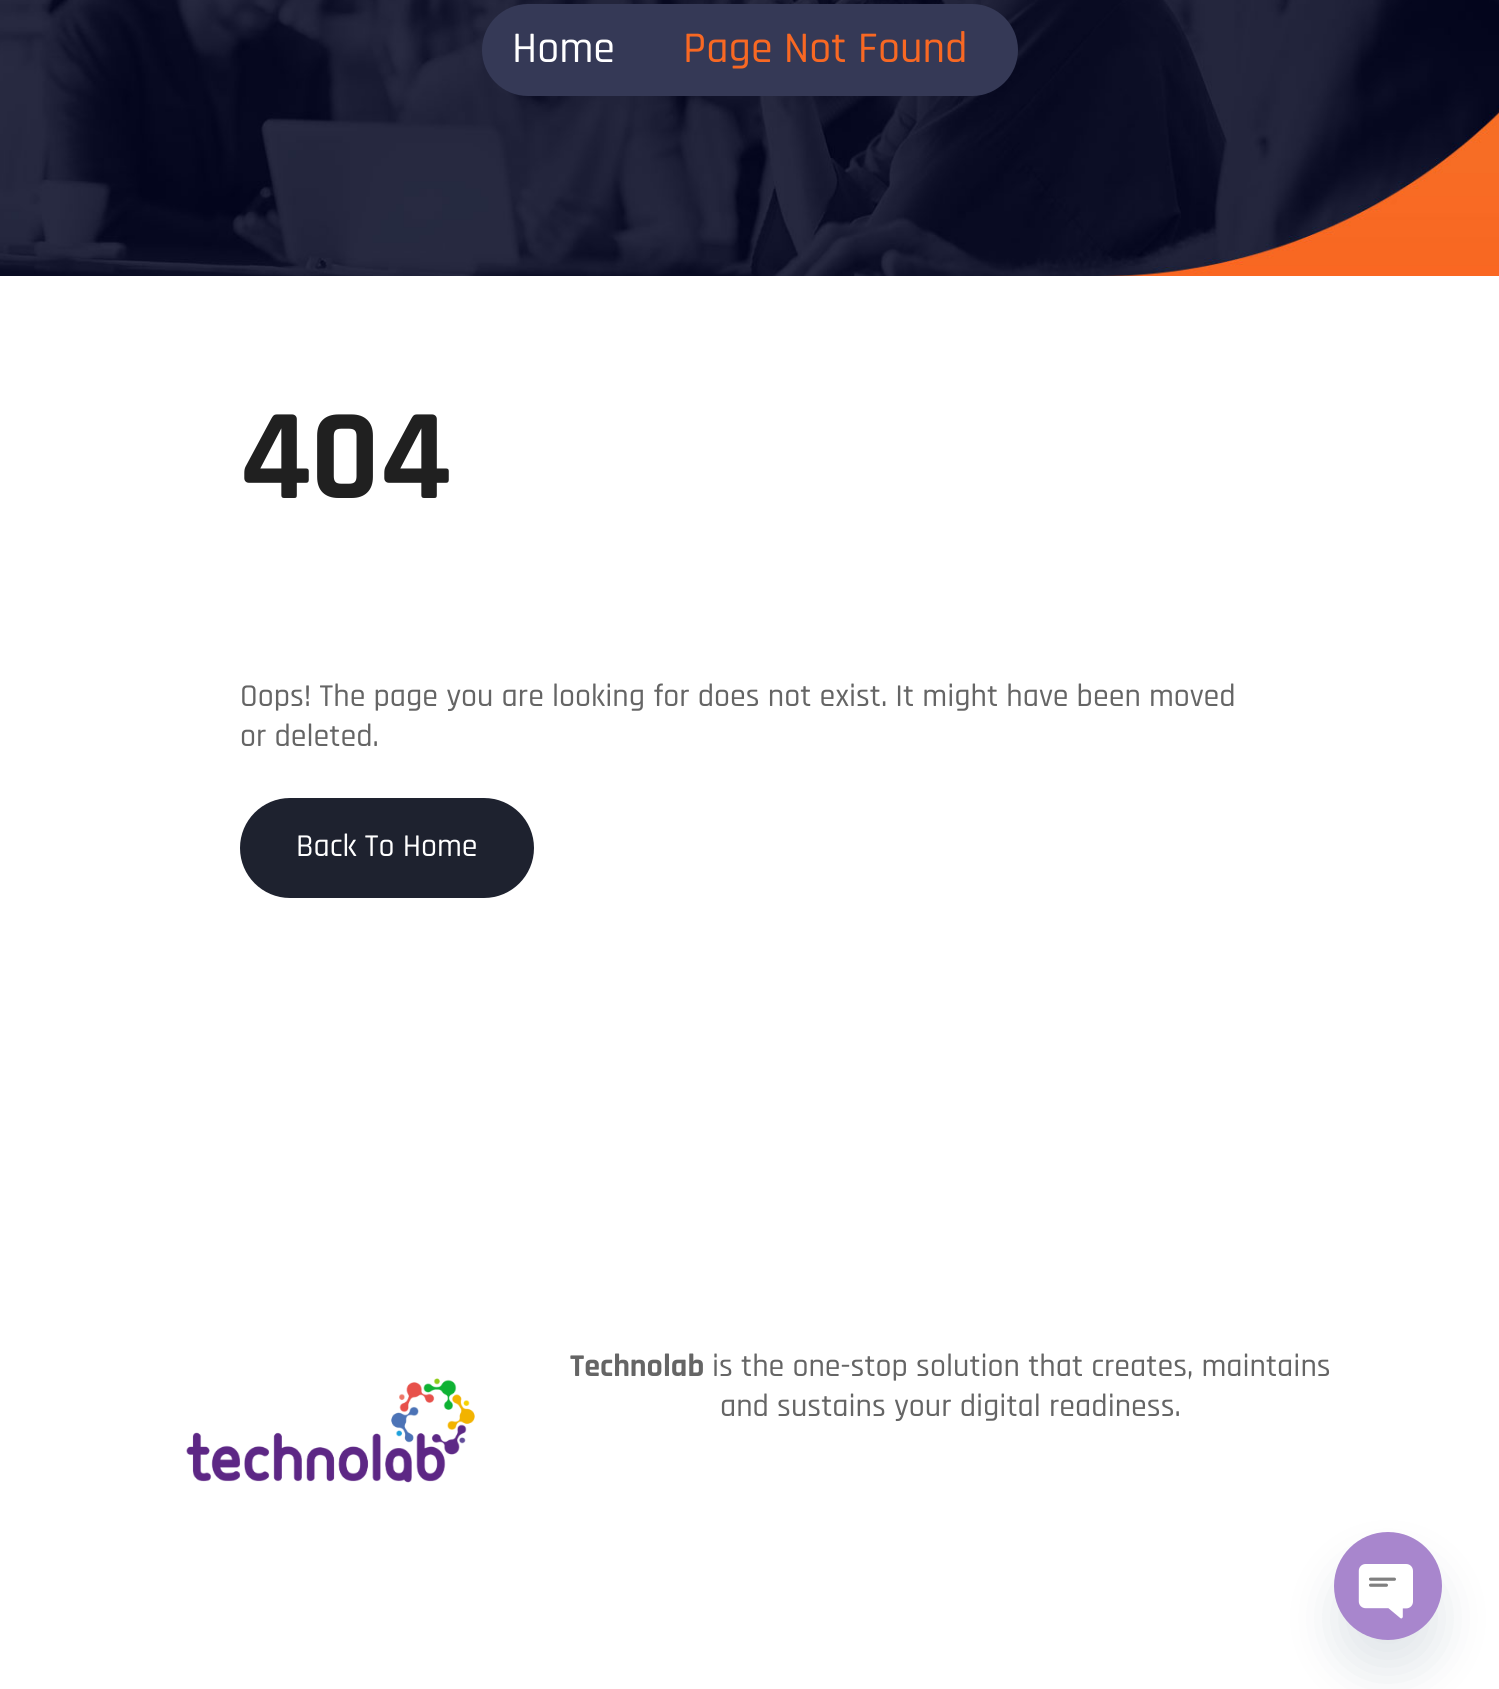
#include <cairo.h>
#include <math.h>
#include <stddef.h>

typedef struct { const char *family; double size; int italic, bold; unsigned color; } style_t;
static cairo_t *ctx;

static void ink(unsigned color) {
    cairo_set_source_rgb(ctx, (color >> 16) / 255.0, (color >> 8 & 255) / 255.0, (color & 255) / 255.0);
}

static void write(double x, double y, const char *s, const style_t *st) {
    cairo_select_font_face(ctx, st->family, st->italic ? CAIRO_FONT_SLANT_ITALIC : CAIRO_FONT_SLANT_NORMAL,
        st->bold ? CAIRO_FONT_WEIGHT_BOLD : CAIRO_FONT_WEIGHT_NORMAL);
    cairo_set_font_size(ctx, st->size);
    ink(st->color);
    cairo_move_to(ctx, x, y);
    cairo_show_text(ctx, s);
}

static void round_path(double x, double y, double w, double h, double r) {
    cairo_new_sub_path(ctx);
    cairo_arc(ctx, x + w - r, y + h - r, r, 0, M_PI / 2);
    cairo_arc(ctx, x + r, y + h - r, r, M_PI / 2, M_PI);
    cairo_arc(ctx, x + r, y + r, r, M_PI, 1.5 * M_PI);
    cairo_arc(ctx, x + w - r, y + r, r, 1.5 * M_PI, 2 * M_PI);
    cairo_close_path(ctx);
}

static void blur_box(double x, double y, double w, double h, double r, double blur, double alpha) {
    cairo_push_group_with_content(ctx, CAIRO_CONTENT_ALPHA);
    cairo_set_operator(ctx, CAIRO_OPERATOR_SOURCE);
    for (int i = 15; i >= -15 && fmin(w, h) + blur * i / 3 > 0; i -= 2) {
        double e = blur * i / 6;
        cairo_set_source_rgba(ctx, 0, 0, 0, alpha * erfc((i - 1) / 8.5) / 2);
        round_path(x - e, y - e, w + 2 * e, h + 2 * e, fmax(0, fmin(r + e + blur * .6, fmin(w, h) / 2 + e)));
        cairo_fill(ctx);
    }
    cairo_pattern_t *soft = cairo_pop_group(ctx);
    cairo_mask(ctx, soft);
    cairo_pattern_destroy(soft);
}

static void paste(const char *path, double x, double y, double w, double h) {
    cairo_surface_t *image = cairo_image_surface_create_from_png(path);
    cairo_save(ctx);
    cairo_set_source_surface(ctx, image, x, y);
    cairo_rectangle(ctx, x, y, w, h);
    cairo_fill(ctx);
    cairo_restore(ctx);
    cairo_surface_destroy(image);
}

static const style_t s1 = {"Rajdhani Medium", 44, 0, 0, 0xffffff};
static const style_t s2 = {"Rajdhani Medium", 44, 0, 0, 0xf86823};
static const style_t s3 = {"Rajdhani", 130, 0, 1, 0x202020};
static const style_t s4 = {"Rajdhani Medium", 32, 0, 0, 0x656565};
static const style_t s5 = {"Rajdhani Medium", 32, 0, 0, 0xffffff};
static const style_t s6 = {"Rajdhani", 32, 0, 1, 0x656565};

int main(void) {
    cairo_surface_t *surface = cairo_image_surface_create(CAIRO_FORMAT_RGB24, 1499, 1689);
    ctx = cairo_create(surface);
    cairo_font_options_t *options = cairo_font_options_create();
    cairo_font_options_set_hint_metrics(options, CAIRO_HINT_METRICS_OFF);
    cairo_font_options_set_hint_style(options, CAIRO_HINT_STYLE_NONE);
    cairo_set_font_options(ctx, options);
    cairo_set_miter_limit(ctx, 4);
    ink(0xffffff);
    cairo_paint(ctx);
    paste("pic1.png", 0, 0, 1499, 276);
    ink(0x353956);
    round_path(482, 4, 536, 92, 46);
    cairo_fill(ctx);
    write(512, 62, "Home", &s1);
    write(683, 62, "Page Not Found", &s2);
    write(240, 498, "404", &s3);
    write(240, 706, "Oops! The page you are looking for does not exist. It might have been moved", &s4);
    write(240, 746, "or deleted.", &s4);
    ink(0x1e222f);
    round_path(240, 798, 294, 100, 50);
    cairo_fill(ctx);
    write(296, 856, "Back To Home", &s5);
    paste("pic2.png", 186, 1378, 289, 105);
    write(570, 1376, "Technolab", &s6);
    write(712, 1376, "is the one-stop solution that creates, maintains", &s4);
    write(720, 1416, "and sustains your digital readiness.", &s4);
    ink(0x49687e);
    blur_box(1334, 1564, 108, 108, 54, 24, 0.16);
    paste("pic3.png", 1334, 1532, 108, 108);
    cairo_surface_write_to_png(surface, "screenshot.png");
    cairo_font_options_destroy(options);
    cairo_destroy(ctx);
    cairo_surface_destroy(surface);
    return 0;
}
